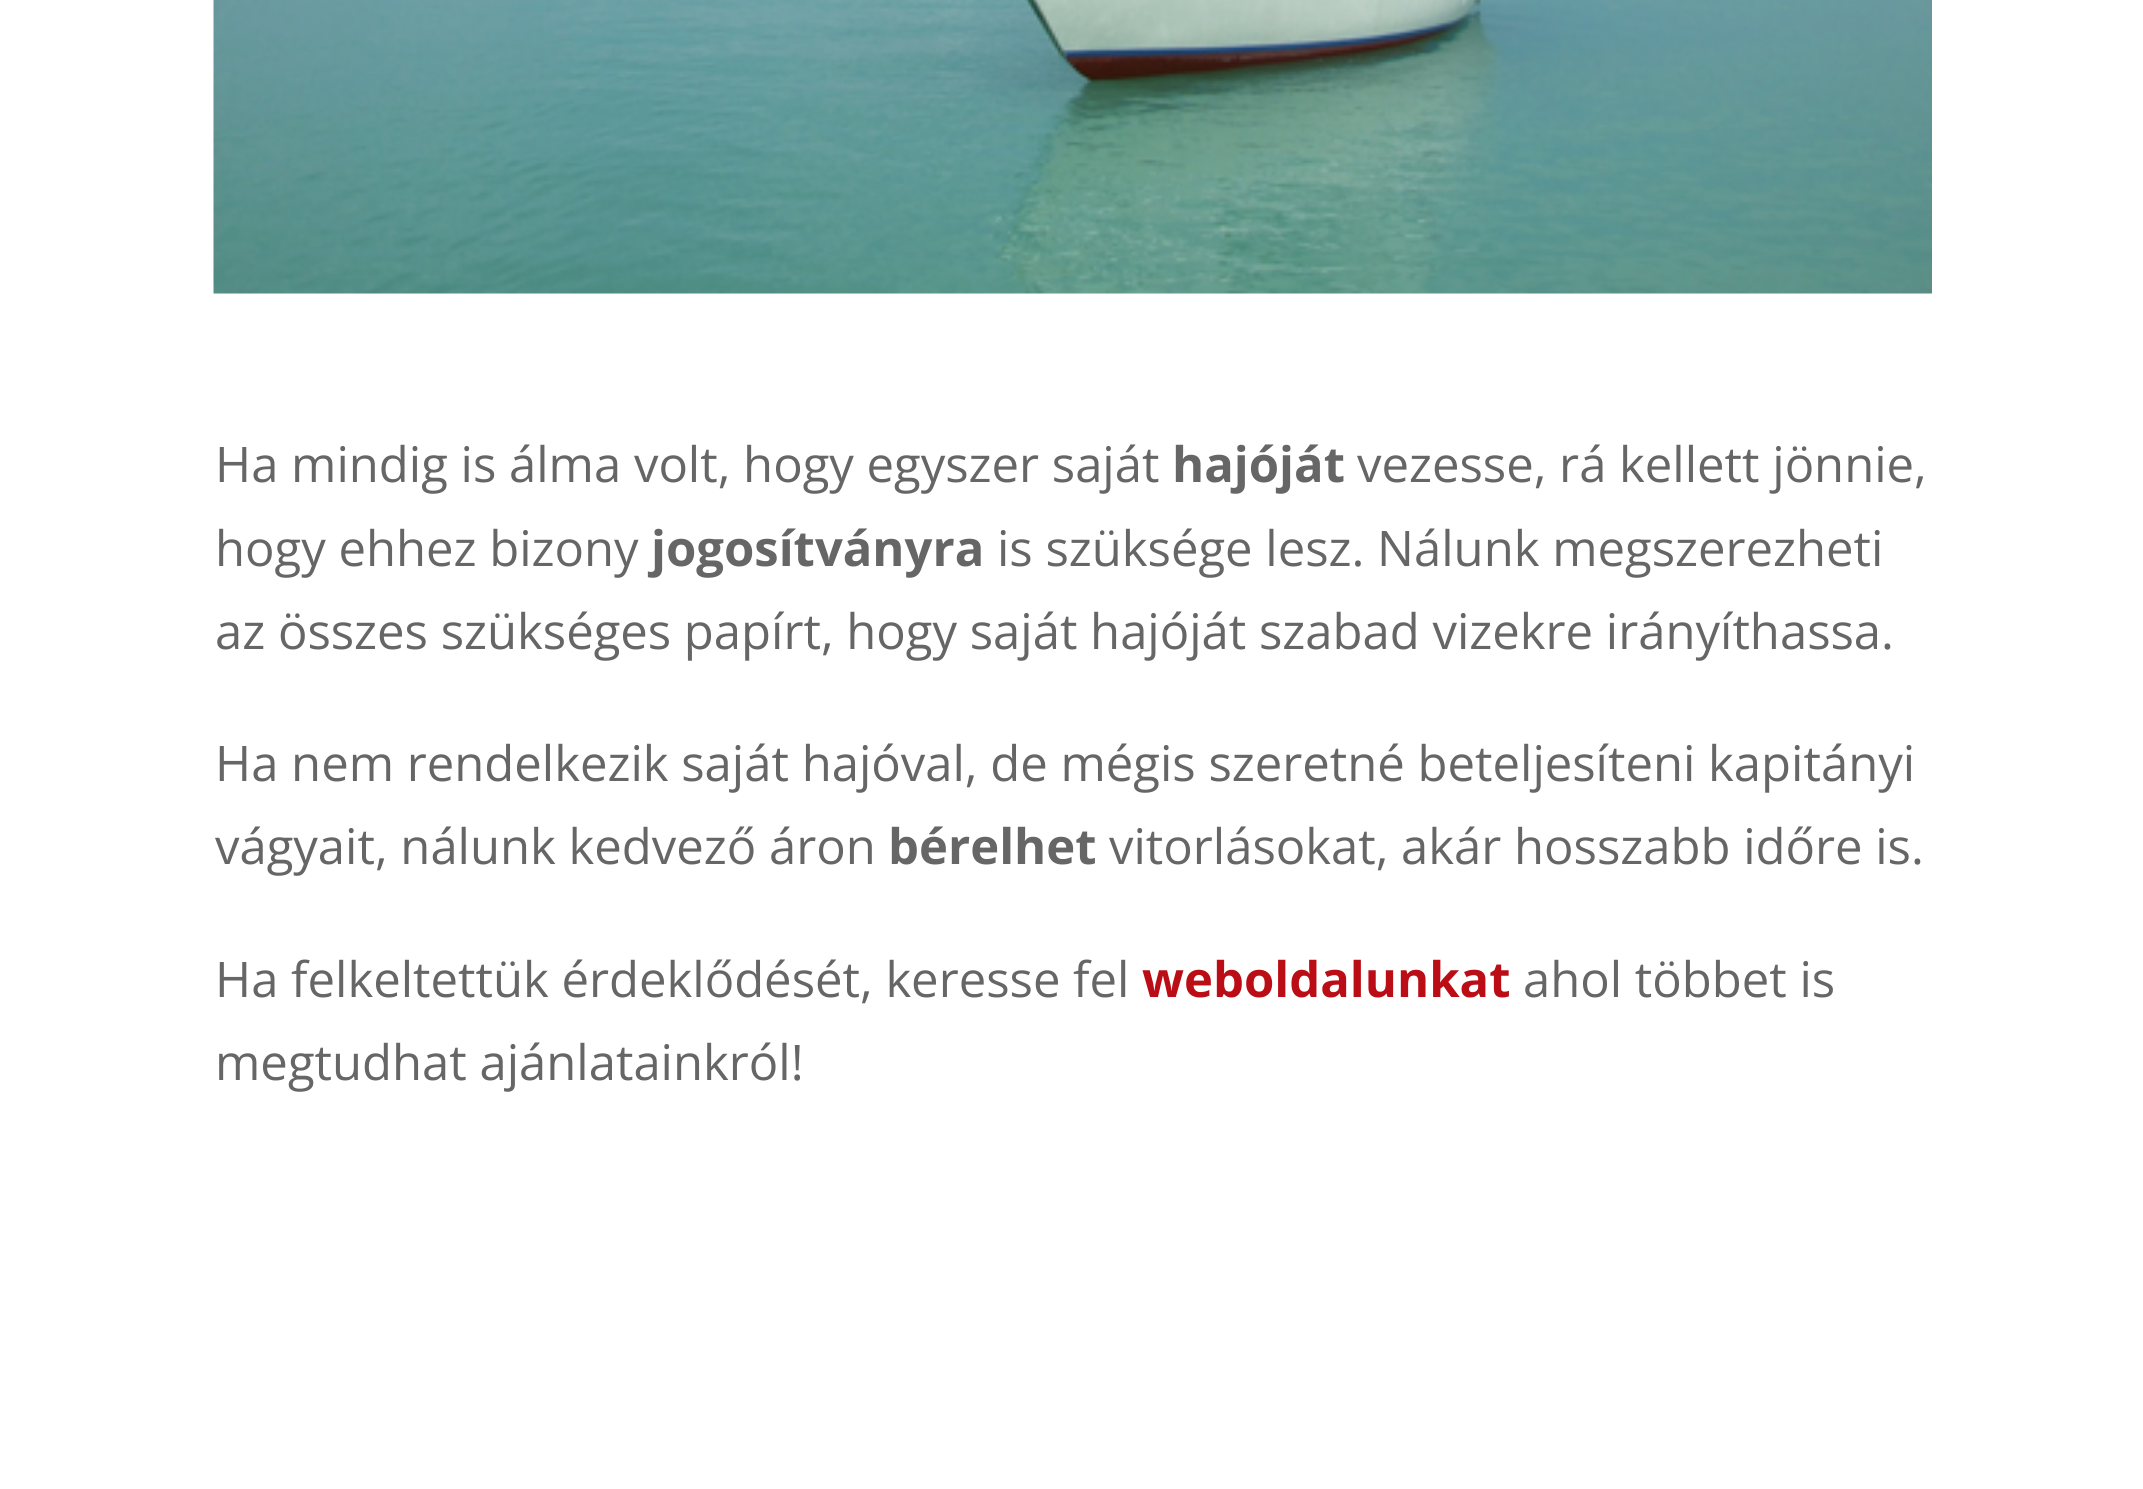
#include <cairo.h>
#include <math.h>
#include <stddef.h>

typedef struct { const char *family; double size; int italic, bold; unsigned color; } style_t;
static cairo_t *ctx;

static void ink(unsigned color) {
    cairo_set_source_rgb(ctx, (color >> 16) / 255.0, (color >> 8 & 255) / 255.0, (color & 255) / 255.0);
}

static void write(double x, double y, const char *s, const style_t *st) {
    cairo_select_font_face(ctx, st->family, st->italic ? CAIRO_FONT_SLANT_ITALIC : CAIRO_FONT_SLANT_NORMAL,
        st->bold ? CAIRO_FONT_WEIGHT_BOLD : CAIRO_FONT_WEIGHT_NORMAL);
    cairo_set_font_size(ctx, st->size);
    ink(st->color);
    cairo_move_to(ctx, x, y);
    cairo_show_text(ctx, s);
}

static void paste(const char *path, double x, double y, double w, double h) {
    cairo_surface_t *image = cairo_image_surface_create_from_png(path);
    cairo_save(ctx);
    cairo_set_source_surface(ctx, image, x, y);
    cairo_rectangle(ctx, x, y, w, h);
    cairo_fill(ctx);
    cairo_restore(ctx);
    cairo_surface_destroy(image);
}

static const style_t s1 = {"Open Sans", 49, 0, 0, 0x666666};
static const style_t s2 = {"Open Sans", 49, 0, 1, 0x666666};
static const style_t s3 = {"Open Sans", 49, 0, 1, 0xba0d16};

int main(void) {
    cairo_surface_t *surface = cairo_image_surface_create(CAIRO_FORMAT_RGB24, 2143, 1489);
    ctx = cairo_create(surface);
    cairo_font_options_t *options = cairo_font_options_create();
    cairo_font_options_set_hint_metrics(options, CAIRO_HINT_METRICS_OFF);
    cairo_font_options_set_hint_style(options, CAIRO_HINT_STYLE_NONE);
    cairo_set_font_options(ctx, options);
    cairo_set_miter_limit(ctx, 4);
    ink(0xffffff);
    cairo_paint(ctx);
    paste("pic1.png", 213, 0, 1719, 294);
    write(215, 482, "Ha mindig is álma volt, hogy egyszer saját", &s1);
    write(1172, 482, "hajóját", &s2);
    write(1357, 482, "vezesse, rá kellett jönnie,", &s1);
    write(215, 566, "hogy ehhez bizony", &s1);
    write(651, 566, "jogosítványra", &s2);
    write(997, 566, "is szüksége lesz. Nálunk megszerezheti", &s1);
    write(215, 649, "az összes szükséges papírt, hogy saját hajóját szabad vizekre irányíthassa.", &s1);
    write(215, 781, "Ha nem rendelkezik saját hajóval, de mégis szeretné beteljesíteni kapitányi", &s1);
    write(215, 864, "vágyait, nálunk kedvező áron", &s1);
    write(888, 864, "bérelhet", &s2);
    write(1109, 864, "vitorlásokat, akár hosszabb időre is.", &s1);
    write(215, 997, "Ha felkeltettük érdeklődését, keresse fel", &s1);
    write(1142, 997, "weboldalunkat", &s3);
    write(1523, 997, "ahol többet is", &s1);
    write(215, 1080, "megtudhat ajánlatainkról!", &s1);
    cairo_surface_write_to_png(surface, "screenshot.png");
    cairo_font_options_destroy(options);
    cairo_destroy(ctx);
    cairo_surface_destroy(surface);
    return 0;
}
